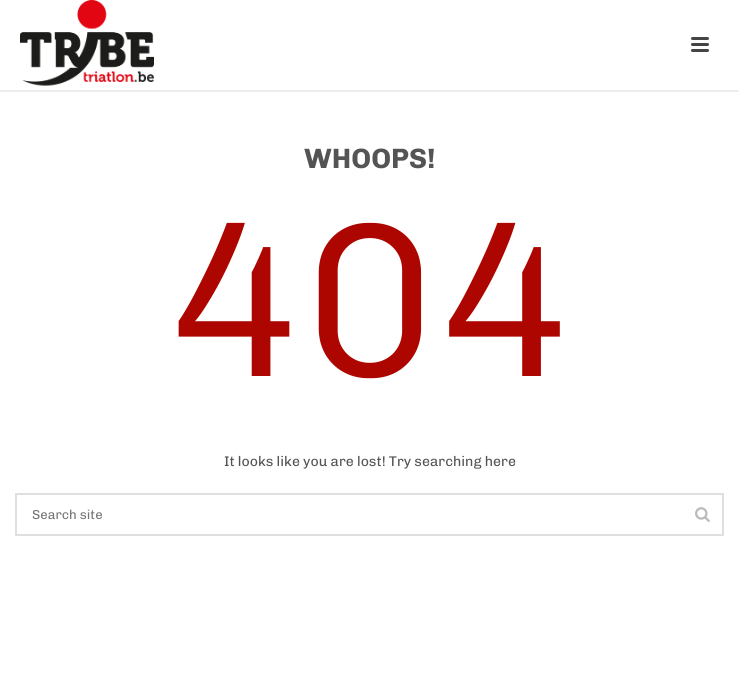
#include <cairo.h>
#include <math.h>
#include <stddef.h>

typedef struct { const char *family; double size; int italic, bold; unsigned color; } style_t;
static cairo_t *ctx;

static void ink(unsigned color) {
    cairo_set_source_rgb(ctx, (color >> 16) / 255.0, (color >> 8 & 255) / 255.0, (color & 255) / 255.0);
}

static void write(double x, double y, const char *s, const style_t *st) {
    cairo_select_font_face(ctx, st->family, st->italic ? CAIRO_FONT_SLANT_ITALIC : CAIRO_FONT_SLANT_NORMAL,
        st->bold ? CAIRO_FONT_WEIGHT_BOLD : CAIRO_FONT_WEIGHT_NORMAL);
    cairo_set_font_size(ctx, st->size);
    ink(st->color);
    cairo_move_to(ctx, x, y);
    cairo_show_text(ctx, s);
}

static void block(double x, double y, double w, double h, unsigned color) {
    ink(color);
    cairo_rectangle(ctx, x, y, w, h);
    cairo_fill(ctx);
}

static void round_path(double x, double y, double w, double h, double r) {
    cairo_new_sub_path(ctx);
    cairo_arc(ctx, x + w - r, y + h - r, r, 0, M_PI / 2);
    cairo_arc(ctx, x + r, y + h - r, r, M_PI / 2, M_PI);
    cairo_arc(ctx, x + r, y + r, r, M_PI, 1.5 * M_PI);
    cairo_arc(ctx, x + w - r, y + r, r, 1.5 * M_PI, 2 * M_PI);
    cairo_close_path(ctx);
}

static void paste(const char *path, double x, double y, double w, double h) {
    cairo_surface_t *image = cairo_image_surface_create_from_png(path);
    cairo_save(ctx);
    cairo_set_source_surface(ctx, image, x, y);
    cairo_rectangle(ctx, x, y, w, h);
    cairo_fill(ctx);
    cairo_restore(ctx);
    cairo_surface_destroy(image);
}

static const style_t s1 = {"Chivo", 28, 0, 1, 0x545454};
static const style_t s2 = {"Chivo Light", 220, 0, 0, 0xad0600};
static const style_t s3 = {"Chivo", 14, 0, 0, 0x545454};
static const style_t s4 = {"Chivo", 13, 0, 0, 0x757575};

int main(void) {
    cairo_surface_t *surface = cairo_image_surface_create(CAIRO_FORMAT_RGB24, 739, 688);
    ctx = cairo_create(surface);
    cairo_font_options_t *options = cairo_font_options_create();
    cairo_font_options_set_hint_metrics(options, CAIRO_HINT_METRICS_OFF);
    cairo_font_options_set_hint_style(options, CAIRO_HINT_STYLE_NONE);
    cairo_set_font_options(ctx, options);
    cairo_set_miter_limit(ctx, 4);
    ink(0xffffff);
    cairo_paint(ctx);
    block(0, 90, 739, 2, 0xededed);
    paste("pic1.png", 20, 0, 134, 86);
    ink(0x444444);
    round_path(691, 37, 18, 3, 1.5);
    cairo_fill(ctx);
    round_path(691, 43, 18, 3, 1.5);
    cairo_fill(ctx);
    round_path(691, 49, 18, 3, 1.5);
    cairo_fill(ctx);
    write(304, 168, "WHOOPS!", &s1);
    write(167, 376, "404", &s2);
    write(224, 466, "It looks like you are lost! Try searching here", &s3);
    cairo_rectangle(ctx, 16, 494, 707, 41);
    ink(0xdfdfdf);
    cairo_stroke(ctx);
    write(32, 519, "Search site", &s4);
    paste("pic2.png", 695, 507, 15, 15);
    cairo_surface_write_to_png(surface, "screenshot.png");
    cairo_font_options_destroy(options);
    cairo_destroy(ctx);
    cairo_surface_destroy(surface);
    return 0;
}
